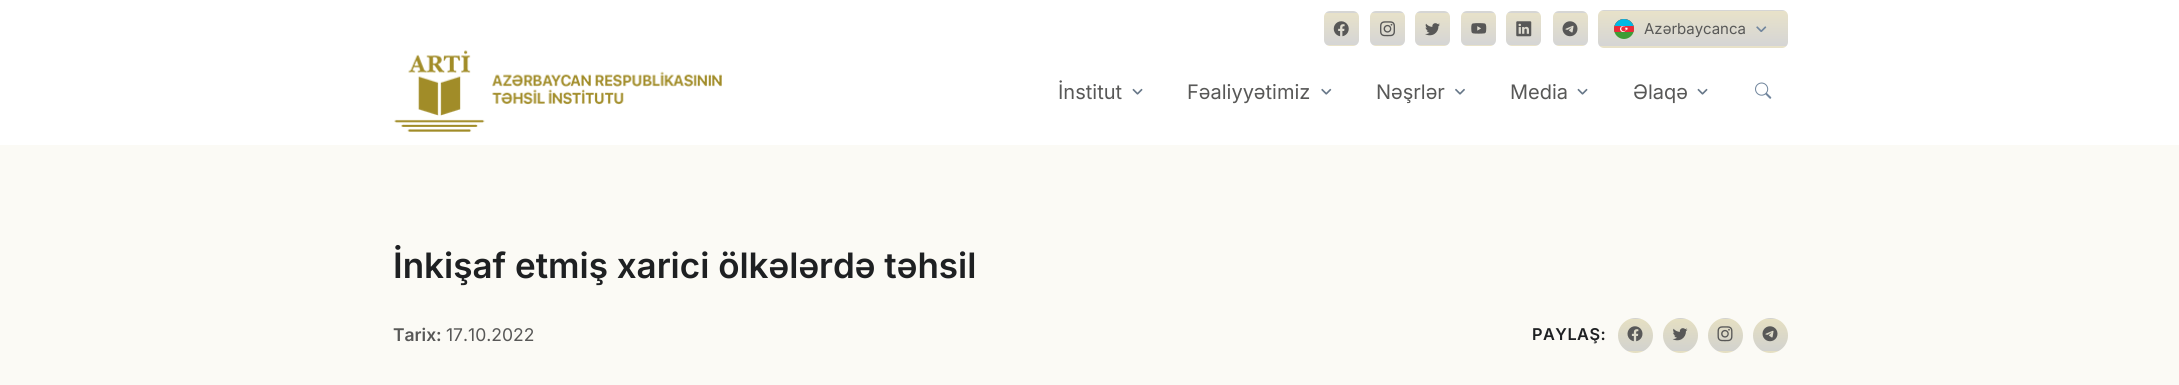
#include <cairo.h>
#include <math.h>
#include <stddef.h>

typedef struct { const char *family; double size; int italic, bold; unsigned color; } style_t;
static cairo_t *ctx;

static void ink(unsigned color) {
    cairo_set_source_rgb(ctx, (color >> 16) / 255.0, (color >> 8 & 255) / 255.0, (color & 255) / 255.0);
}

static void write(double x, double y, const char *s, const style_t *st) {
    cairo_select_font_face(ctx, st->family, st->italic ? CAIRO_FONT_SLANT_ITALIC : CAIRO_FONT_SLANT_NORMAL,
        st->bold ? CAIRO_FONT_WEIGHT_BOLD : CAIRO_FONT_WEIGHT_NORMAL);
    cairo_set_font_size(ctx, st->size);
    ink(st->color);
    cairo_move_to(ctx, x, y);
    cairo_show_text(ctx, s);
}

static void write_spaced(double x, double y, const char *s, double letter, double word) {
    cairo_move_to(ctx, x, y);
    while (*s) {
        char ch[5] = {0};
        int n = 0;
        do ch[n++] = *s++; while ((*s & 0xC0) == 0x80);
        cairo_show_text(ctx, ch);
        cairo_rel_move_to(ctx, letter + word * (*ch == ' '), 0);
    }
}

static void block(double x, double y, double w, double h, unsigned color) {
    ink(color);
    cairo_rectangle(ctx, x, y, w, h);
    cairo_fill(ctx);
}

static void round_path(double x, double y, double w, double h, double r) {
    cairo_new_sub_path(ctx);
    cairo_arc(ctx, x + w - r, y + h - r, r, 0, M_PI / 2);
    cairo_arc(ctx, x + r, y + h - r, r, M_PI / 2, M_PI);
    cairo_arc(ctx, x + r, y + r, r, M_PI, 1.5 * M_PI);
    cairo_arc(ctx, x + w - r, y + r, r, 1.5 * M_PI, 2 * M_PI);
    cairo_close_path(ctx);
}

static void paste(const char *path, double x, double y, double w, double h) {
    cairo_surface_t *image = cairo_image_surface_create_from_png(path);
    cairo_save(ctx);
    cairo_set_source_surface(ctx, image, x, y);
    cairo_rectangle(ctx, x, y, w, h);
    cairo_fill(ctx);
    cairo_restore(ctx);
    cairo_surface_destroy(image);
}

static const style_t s1 = {"Inter", 15, 0, 0, 0x585857};
static const style_t s2 = {"Inter", 20, 0, 0, 0x585857};
static const style_t s3 = {"Inter SemiBold", 35, 0, 0, 0x1e2022};
static const style_t s4 = {"Inter SemiBold", 17.5, 0, 0, 0x585857};
static const style_t s5 = {"Inter", 17.5, 0, 0, 0x585857};

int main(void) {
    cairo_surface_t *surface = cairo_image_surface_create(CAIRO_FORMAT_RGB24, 2179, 385);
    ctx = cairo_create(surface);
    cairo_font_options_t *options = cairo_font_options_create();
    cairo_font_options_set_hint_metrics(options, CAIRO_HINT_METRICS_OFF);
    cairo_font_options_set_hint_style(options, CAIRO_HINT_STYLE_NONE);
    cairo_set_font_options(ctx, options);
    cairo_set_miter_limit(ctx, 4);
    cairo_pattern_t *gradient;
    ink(0xfbfaf5);
    cairo_paint(ctx);
    block(0, 0, 2179, 145, 0xffffff);
    cairo_save(ctx);
    round_path(1324, 11, 35, 35, 6);
    cairo_clip(ctx);
    gradient = cairo_pattern_create_linear(1341, -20, 1341, 13);
    cairo_pattern_add_color_stop_rgba(gradient, 0, 0.91, 0.886, 0.788, 1);
    cairo_pattern_add_color_stop_rgba(gradient, 1, 0.835, 0.835, 0.835, 1);
    cairo_set_source(ctx, gradient);
    cairo_pattern_destroy(gradient);
    cairo_rectangle(ctx, 1324, 11, 35, 2);
    cairo_fill(ctx);
    gradient = cairo_pattern_create_linear(1341, 12, 1341, 45);
    cairo_pattern_add_color_stop_rgba(gradient, 0, 0.91, 0.886, 0.788, 1);
    cairo_pattern_add_color_stop_rgba(gradient, 1, 0.835, 0.835, 0.835, 1);
    cairo_set_source(ctx, gradient);
    cairo_pattern_destroy(gradient);
    cairo_rectangle(ctx, 1324, 13, 35, 32);
    cairo_fill(ctx);
    gradient = cairo_pattern_create_linear(1341, 45, 1341, 78);
    cairo_pattern_add_color_stop_rgba(gradient, 0, 0.91, 0.886, 0.788, 1);
    cairo_pattern_add_color_stop_rgba(gradient, 1, 0.835, 0.835, 0.835, 1);
    cairo_set_source(ctx, gradient);
    cairo_pattern_destroy(gradient);
    cairo_rectangle(ctx, 1324, 45, 35, 1);
    cairo_fill(ctx);
    cairo_restore(ctx);
    paste("pic1.png", 1333, 21, 16, 16);
    cairo_save(ctx);
    round_path(1370, 11, 35, 35, 6);
    cairo_clip(ctx);
    gradient = cairo_pattern_create_linear(1388, -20, 1388, 13);
    cairo_pattern_add_color_stop_rgba(gradient, 0, 0.91, 0.886, 0.788, 1);
    cairo_pattern_add_color_stop_rgba(gradient, 1, 0.835, 0.835, 0.835, 1);
    cairo_set_source(ctx, gradient);
    cairo_pattern_destroy(gradient);
    cairo_rectangle(ctx, 1370, 11, 35, 2);
    cairo_fill(ctx);
    gradient = cairo_pattern_create_linear(1388, 12, 1388, 45);
    cairo_pattern_add_color_stop_rgba(gradient, 0, 0.91, 0.886, 0.788, 1);
    cairo_pattern_add_color_stop_rgba(gradient, 1, 0.835, 0.835, 0.835, 1);
    cairo_set_source(ctx, gradient);
    cairo_pattern_destroy(gradient);
    cairo_rectangle(ctx, 1370, 13, 35, 32);
    cairo_fill(ctx);
    gradient = cairo_pattern_create_linear(1388, 45, 1388, 78);
    cairo_pattern_add_color_stop_rgba(gradient, 0, 0.91, 0.886, 0.788, 1);
    cairo_pattern_add_color_stop_rgba(gradient, 1, 0.835, 0.835, 0.835, 1);
    cairo_set_source(ctx, gradient);
    cairo_pattern_destroy(gradient);
    cairo_rectangle(ctx, 1370, 45, 35, 1);
    cairo_fill(ctx);
    cairo_restore(ctx);
    paste("pic2.png", 1380, 21, 15, 16);
    cairo_save(ctx);
    round_path(1415, 11, 35, 35, 6);
    cairo_clip(ctx);
    gradient = cairo_pattern_create_linear(1433, -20, 1433, 13);
    cairo_pattern_add_color_stop_rgba(gradient, 0, 0.91, 0.886, 0.788, 1);
    cairo_pattern_add_color_stop_rgba(gradient, 1, 0.835, 0.835, 0.835, 1);
    cairo_set_source(ctx, gradient);
    cairo_pattern_destroy(gradient);
    cairo_rectangle(ctx, 1415, 11, 35, 2);
    cairo_fill(ctx);
    gradient = cairo_pattern_create_linear(1433, 12, 1433, 45);
    cairo_pattern_add_color_stop_rgba(gradient, 0, 0.91, 0.886, 0.788, 1);
    cairo_pattern_add_color_stop_rgba(gradient, 1, 0.835, 0.835, 0.835, 1);
    cairo_set_source(ctx, gradient);
    cairo_pattern_destroy(gradient);
    cairo_rectangle(ctx, 1415, 13, 35, 32);
    cairo_fill(ctx);
    gradient = cairo_pattern_create_linear(1433, 45, 1433, 78);
    cairo_pattern_add_color_stop_rgba(gradient, 0, 0.91, 0.886, 0.788, 1);
    cairo_pattern_add_color_stop_rgba(gradient, 1, 0.835, 0.835, 0.835, 1);
    cairo_set_source(ctx, gradient);
    cairo_pattern_destroy(gradient);
    cairo_rectangle(ctx, 1415, 45, 35, 1);
    cairo_fill(ctx);
    cairo_restore(ctx);
    paste("pic3.png", 1425, 23, 15, 13);
    cairo_save(ctx);
    round_path(1461, 11, 35, 35, 6);
    cairo_clip(ctx);
    gradient = cairo_pattern_create_linear(1479, -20, 1479, 13);
    cairo_pattern_add_color_stop_rgba(gradient, 0, 0.91, 0.886, 0.788, 1);
    cairo_pattern_add_color_stop_rgba(gradient, 1, 0.835, 0.835, 0.835, 1);
    cairo_set_source(ctx, gradient);
    cairo_pattern_destroy(gradient);
    cairo_rectangle(ctx, 1461, 11, 35, 2);
    cairo_fill(ctx);
    gradient = cairo_pattern_create_linear(1479, 12, 1479, 45);
    cairo_pattern_add_color_stop_rgba(gradient, 0, 0.91, 0.886, 0.788, 1);
    cairo_pattern_add_color_stop_rgba(gradient, 1, 0.835, 0.835, 0.835, 1);
    cairo_set_source(ctx, gradient);
    cairo_pattern_destroy(gradient);
    cairo_rectangle(ctx, 1461, 13, 35, 32);
    cairo_fill(ctx);
    gradient = cairo_pattern_create_linear(1479, 45, 1479, 78);
    cairo_pattern_add_color_stop_rgba(gradient, 0, 0.91, 0.886, 0.788, 1);
    cairo_pattern_add_color_stop_rgba(gradient, 1, 0.835, 0.835, 0.835, 1);
    cairo_set_source(ctx, gradient);
    cairo_pattern_destroy(gradient);
    cairo_rectangle(ctx, 1461, 45, 35, 1);
    cairo_fill(ctx);
    cairo_restore(ctx);
    paste("pic4.png", 1471, 23, 16, 11);
    cairo_save(ctx);
    round_path(1506, 11, 35, 35, 6);
    cairo_clip(ctx);
    gradient = cairo_pattern_create_linear(1524, -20, 1524, 13);
    cairo_pattern_add_color_stop_rgba(gradient, 0, 0.91, 0.886, 0.788, 1);
    cairo_pattern_add_color_stop_rgba(gradient, 1, 0.835, 0.835, 0.835, 1);
    cairo_set_source(ctx, gradient);
    cairo_pattern_destroy(gradient);
    cairo_rectangle(ctx, 1506, 11, 35, 2);
    cairo_fill(ctx);
    gradient = cairo_pattern_create_linear(1524, 12, 1524, 45);
    cairo_pattern_add_color_stop_rgba(gradient, 0, 0.91, 0.886, 0.788, 1);
    cairo_pattern_add_color_stop_rgba(gradient, 1, 0.835, 0.835, 0.835, 1);
    cairo_set_source(ctx, gradient);
    cairo_pattern_destroy(gradient);
    cairo_rectangle(ctx, 1506, 13, 35, 32);
    cairo_fill(ctx);
    gradient = cairo_pattern_create_linear(1524, 45, 1524, 78);
    cairo_pattern_add_color_stop_rgba(gradient, 0, 0.91, 0.886, 0.788, 1);
    cairo_pattern_add_color_stop_rgba(gradient, 1, 0.835, 0.835, 0.835, 1);
    cairo_set_source(ctx, gradient);
    cairo_pattern_destroy(gradient);
    cairo_rectangle(ctx, 1506, 45, 35, 1);
    cairo_fill(ctx);
    cairo_restore(ctx);
    paste("pic5.png", 1516, 21, 16, 16);
    cairo_save(ctx);
    round_path(1553, 11, 35, 35, 6);
    cairo_clip(ctx);
    gradient = cairo_pattern_create_linear(1570, -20, 1570, 13);
    cairo_pattern_add_color_stop_rgba(gradient, 0, 0.91, 0.886, 0.788, 1);
    cairo_pattern_add_color_stop_rgba(gradient, 1, 0.835, 0.835, 0.835, 1);
    cairo_set_source(ctx, gradient);
    cairo_pattern_destroy(gradient);
    cairo_rectangle(ctx, 1553, 11, 35, 2);
    cairo_fill(ctx);
    gradient = cairo_pattern_create_linear(1570, 12, 1570, 45);
    cairo_pattern_add_color_stop_rgba(gradient, 0, 0.91, 0.886, 0.788, 1);
    cairo_pattern_add_color_stop_rgba(gradient, 1, 0.835, 0.835, 0.835, 1);
    cairo_set_source(ctx, gradient);
    cairo_pattern_destroy(gradient);
    cairo_rectangle(ctx, 1553, 13, 35, 32);
    cairo_fill(ctx);
    gradient = cairo_pattern_create_linear(1570, 45, 1570, 78);
    cairo_pattern_add_color_stop_rgba(gradient, 0, 0.91, 0.886, 0.788, 1);
    cairo_pattern_add_color_stop_rgba(gradient, 1, 0.835, 0.835, 0.835, 1);
    cairo_set_source(ctx, gradient);
    cairo_pattern_destroy(gradient);
    cairo_rectangle(ctx, 1553, 45, 35, 1);
    cairo_fill(ctx);
    cairo_restore(ctx);
    paste("pic6.png", 1562, 21, 16, 16);
    cairo_save(ctx);
    round_path(1598, 10, 190, 38, 6);
    cairo_clip(ctx);
    gradient = cairo_pattern_create_linear(1693, -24, 1693, 11);
    cairo_pattern_add_color_stop_rgba(gradient, 0, 0.91, 0.886, 0.788, 1);
    cairo_pattern_add_color_stop_rgba(gradient, 1, 0.835, 0.835, 0.835, 1);
    cairo_set_source(ctx, gradient);
    cairo_pattern_destroy(gradient);
    cairo_rectangle(ctx, 1598, 10, 190, 1);
    cairo_fill(ctx);
    gradient = cairo_pattern_create_linear(1693, 11, 1693, 46);
    cairo_pattern_add_color_stop_rgba(gradient, 0, 0.91, 0.886, 0.788, 1);
    cairo_pattern_add_color_stop_rgba(gradient, 1, 0.835, 0.835, 0.835, 1);
    cairo_set_source(ctx, gradient);
    cairo_pattern_destroy(gradient);
    cairo_rectangle(ctx, 1598, 11, 190, 35);
    cairo_fill(ctx);
    gradient = cairo_pattern_create_linear(1693, 46, 1693, 81);
    cairo_pattern_add_color_stop_rgba(gradient, 0, 0.91, 0.886, 0.788, 1);
    cairo_pattern_add_color_stop_rgba(gradient, 1, 0.835, 0.835, 0.835, 1);
    cairo_set_source(ctx, gradient);
    cairo_pattern_destroy(gradient);
    cairo_rectangle(ctx, 1598, 46, 190, 2);
    cairo_fill(ctx);
    cairo_restore(ctx);
    paste("pic7.png", 1614, 19, 20, 20);
    write(1644, 34, "Azərbaycanca", &s1);
    paste("pic8.png", 1756, 26, 11, 6);
    paste("pic9.png", 394, 50, 328, 82);
    write(1058, 99, "İnstitut", &s2);
    paste("pic10.png", 1132, 88, 11, 7);
    write(1187, 99, "Fəaliyyətimiz", &s2);
    paste("pic11.png", 1321, 88, 11, 7);
    write(1376, 99, "Nəşrlər", &s2);
    paste("pic12.png", 1455, 88, 10, 7);
    write(1510, 99, "Media", &s2);
    paste("pic10.png", 1577, 88, 11, 7);
    write(1633, 99, "Əlaqə", &s2);
    paste("pic10.png", 1697, 88, 11, 7);
    paste("pic13.png", 1755, 82, 17, 17);
    write(393, 278, "İnkişaf etmiş xarici ölkələrdə təhsil", &s3);
    write(393, 341, "Tarix:", &s4);
    write(446, 341, "17.10.2022", &s5);
    cairo_select_font_face(ctx, "Inter SemiBold", CAIRO_FONT_SLANT_NORMAL, CAIRO_FONT_WEIGHT_NORMAL);
    cairo_set_font_size(ctx, 16.25);
    ink(0x1e2022);
    write_spaced(1532, 340, "PAYLAŞ:", 0.5, 0);
    cairo_save(ctx);
    round_path(1618, 318, 35, 35, 17.5);
    cairo_clip(ctx);
    gradient = cairo_pattern_create_linear(1635, 286, 1635, 319);
    cairo_pattern_add_color_stop_rgba(gradient, 0, 0.898, 0.875, 0.761, 1);
    cairo_pattern_add_color_stop_rgba(gradient, 1, 0.824, 0.824, 0.808, 1);
    cairo_set_source(ctx, gradient);
    cairo_pattern_destroy(gradient);
    cairo_rectangle(ctx, 1630, 318, 11, 1);
    cairo_fill(ctx);
    gradient = cairo_pattern_create_linear(1635, 319, 1635, 351);
    cairo_pattern_add_color_stop_rgba(gradient, 0, 0.898, 0.875, 0.761, 1);
    cairo_pattern_add_color_stop_rgba(gradient, 1, 0.824, 0.824, 0.808, 1);
    cairo_set_source(ctx, gradient);
    cairo_pattern_destroy(gradient);
    cairo_rectangle(ctx, 1618, 319, 35, 32);
    cairo_fill(ctx);
    gradient = cairo_pattern_create_linear(1635, 351, 1635, 384);
    cairo_pattern_add_color_stop_rgba(gradient, 0, 0.898, 0.875, 0.761, 1);
    cairo_pattern_add_color_stop_rgba(gradient, 1, 0.824, 0.824, 0.808, 1);
    cairo_set_source(ctx, gradient);
    cairo_pattern_destroy(gradient);
    cairo_rectangle(ctx, 1627, 351, 17, 2);
    cairo_fill(ctx);
    cairo_restore(ctx);
    paste("pic14.png", 1627, 326, 16, 16);
    cairo_save(ctx);
    round_path(1663, 318, 35, 35, 17.5);
    cairo_clip(ctx);
    gradient = cairo_pattern_create_linear(1680, 286, 1680, 319);
    cairo_pattern_add_color_stop_rgba(gradient, 0, 0.898, 0.875, 0.761, 1);
    cairo_pattern_add_color_stop_rgba(gradient, 1, 0.824, 0.824, 0.808, 1);
    cairo_set_source(ctx, gradient);
    cairo_pattern_destroy(gradient);
    cairo_rectangle(ctx, 1675, 318, 11, 1);
    cairo_fill(ctx);
    gradient = cairo_pattern_create_linear(1680, 319, 1680, 351);
    cairo_pattern_add_color_stop_rgba(gradient, 0, 0.898, 0.875, 0.761, 1);
    cairo_pattern_add_color_stop_rgba(gradient, 1, 0.824, 0.824, 0.808, 1);
    cairo_set_source(ctx, gradient);
    cairo_pattern_destroy(gradient);
    cairo_rectangle(ctx, 1663, 319, 35, 32);
    cairo_fill(ctx);
    gradient = cairo_pattern_create_linear(1680, 351, 1680, 384);
    cairo_pattern_add_color_stop_rgba(gradient, 0, 0.898, 0.875, 0.761, 1);
    cairo_pattern_add_color_stop_rgba(gradient, 1, 0.824, 0.824, 0.808, 1);
    cairo_set_source(ctx, gradient);
    cairo_pattern_destroy(gradient);
    cairo_rectangle(ctx, 1672, 351, 17, 2);
    cairo_fill(ctx);
    cairo_restore(ctx);
    paste("pic15.png", 1672, 328, 16, 13);
    cairo_save(ctx);
    round_path(1708, 318, 35, 35, 17.5);
    cairo_clip(ctx);
    gradient = cairo_pattern_create_linear(1725, 286, 1725, 319);
    cairo_pattern_add_color_stop_rgba(gradient, 0, 0.898, 0.875, 0.761, 1);
    cairo_pattern_add_color_stop_rgba(gradient, 1, 0.824, 0.824, 0.808, 1);
    cairo_set_source(ctx, gradient);
    cairo_pattern_destroy(gradient);
    cairo_rectangle(ctx, 1720, 318, 11, 1);
    cairo_fill(ctx);
    gradient = cairo_pattern_create_linear(1725, 319, 1725, 351);
    cairo_pattern_add_color_stop_rgba(gradient, 0, 0.898, 0.875, 0.761, 1);
    cairo_pattern_add_color_stop_rgba(gradient, 1, 0.824, 0.824, 0.808, 1);
    cairo_set_source(ctx, gradient);
    cairo_pattern_destroy(gradient);
    cairo_rectangle(ctx, 1708, 319, 35, 32);
    cairo_fill(ctx);
    gradient = cairo_pattern_create_linear(1725, 351, 1725, 384);
    cairo_pattern_add_color_stop_rgba(gradient, 0, 0.898, 0.875, 0.761, 1);
    cairo_pattern_add_color_stop_rgba(gradient, 1, 0.824, 0.824, 0.808, 1);
    cairo_set_source(ctx, gradient);
    cairo_pattern_destroy(gradient);
    cairo_rectangle(ctx, 1717, 351, 17, 2);
    cairo_fill(ctx);
    cairo_restore(ctx);
    paste("pic16.png", 1717, 326, 16, 16);
    cairo_save(ctx);
    round_path(1753, 318, 35, 35, 17.5);
    cairo_clip(ctx);
    gradient = cairo_pattern_create_linear(1770, 286, 1770, 319);
    cairo_pattern_add_color_stop_rgba(gradient, 0, 0.898, 0.875, 0.761, 1);
    cairo_pattern_add_color_stop_rgba(gradient, 1, 0.824, 0.824, 0.808, 1);
    cairo_set_source(ctx, gradient);
    cairo_pattern_destroy(gradient);
    cairo_rectangle(ctx, 1765, 318, 11, 1);
    cairo_fill(ctx);
    gradient = cairo_pattern_create_linear(1770, 319, 1770, 351);
    cairo_pattern_add_color_stop_rgba(gradient, 0, 0.898, 0.875, 0.761, 1);
    cairo_pattern_add_color_stop_rgba(gradient, 1, 0.824, 0.824, 0.808, 1);
    cairo_set_source(ctx, gradient);
    cairo_pattern_destroy(gradient);
    cairo_rectangle(ctx, 1753, 319, 35, 32);
    cairo_fill(ctx);
    gradient = cairo_pattern_create_linear(1770, 351, 1770, 384);
    cairo_pattern_add_color_stop_rgba(gradient, 0, 0.898, 0.875, 0.761, 1);
    cairo_pattern_add_color_stop_rgba(gradient, 1, 0.824, 0.824, 0.808, 1);
    cairo_set_source(ctx, gradient);
    cairo_pattern_destroy(gradient);
    cairo_rectangle(ctx, 1762, 351, 17, 2);
    cairo_fill(ctx);
    cairo_restore(ctx);
    paste("pic17.png", 1762, 326, 16, 16);
    cairo_surface_write_to_png(surface, "screenshot.png");
    cairo_font_options_destroy(options);
    cairo_destroy(ctx);
    cairo_surface_destroy(surface);
    return 0;
}
